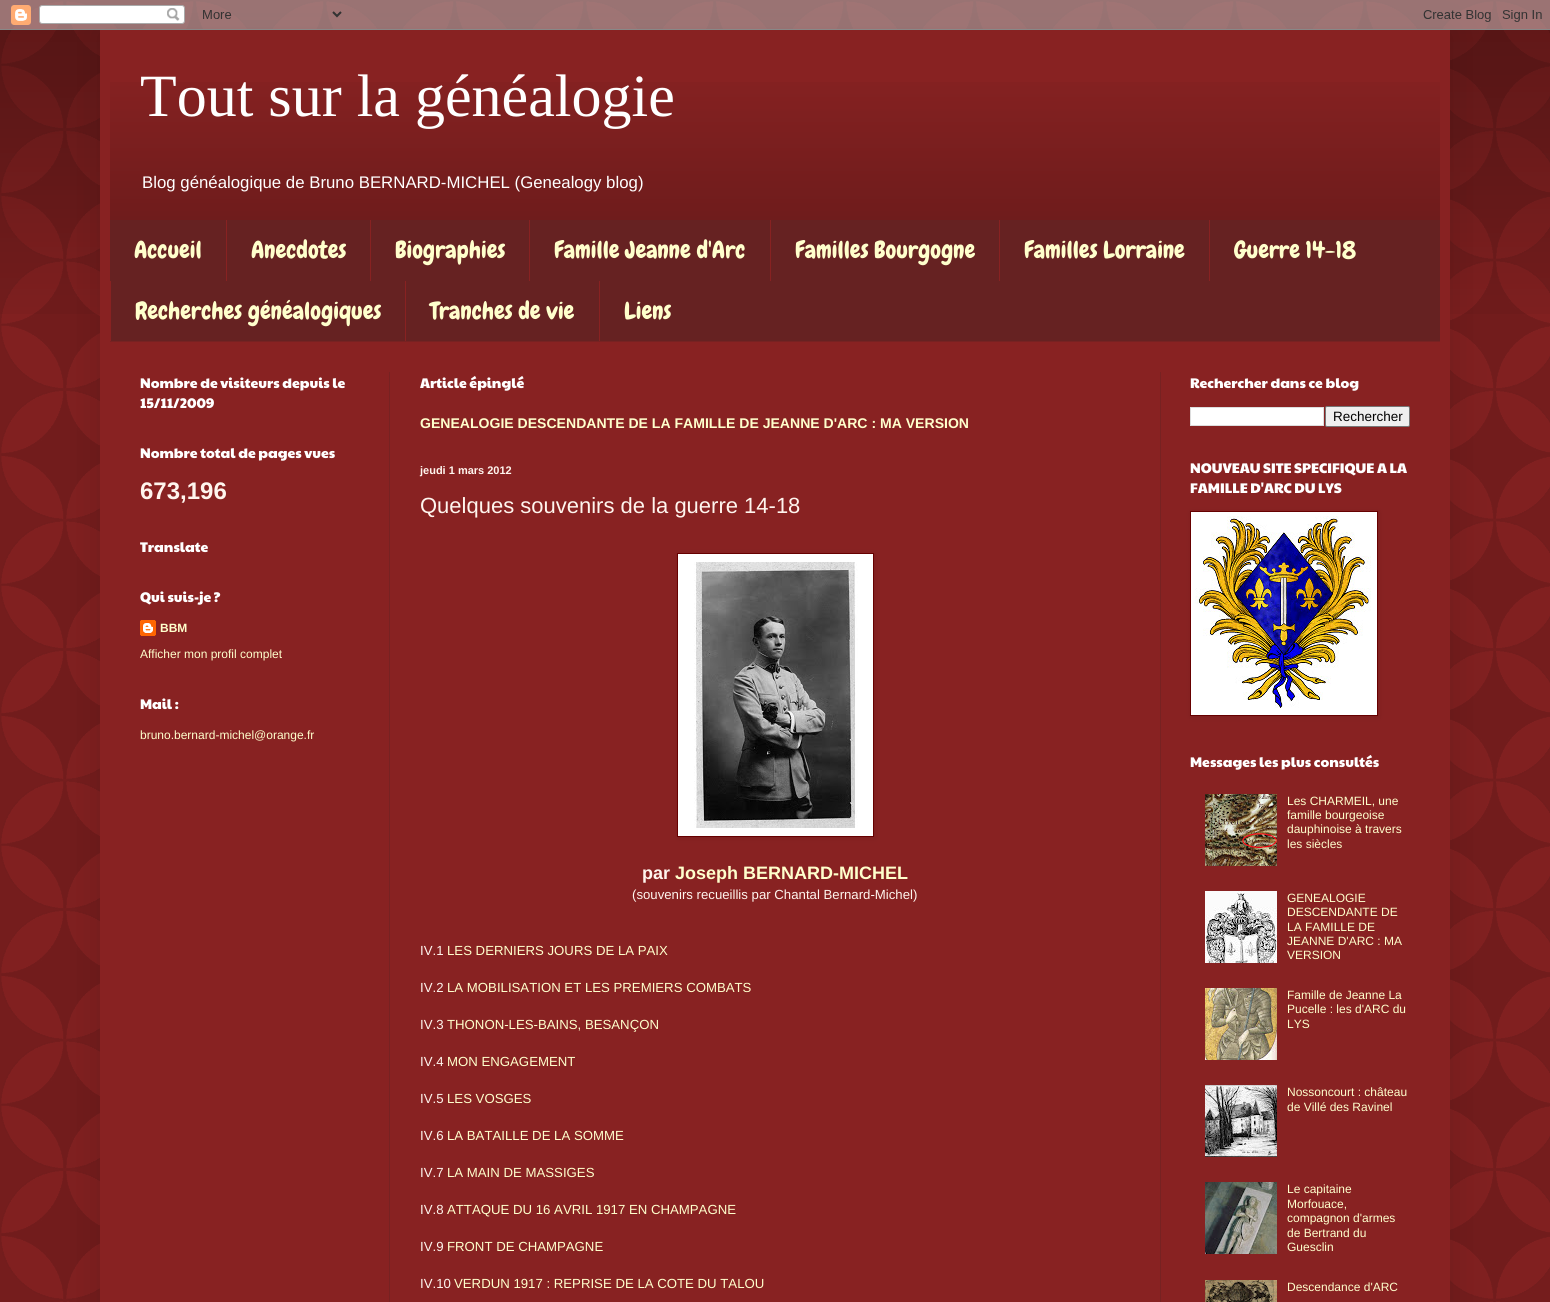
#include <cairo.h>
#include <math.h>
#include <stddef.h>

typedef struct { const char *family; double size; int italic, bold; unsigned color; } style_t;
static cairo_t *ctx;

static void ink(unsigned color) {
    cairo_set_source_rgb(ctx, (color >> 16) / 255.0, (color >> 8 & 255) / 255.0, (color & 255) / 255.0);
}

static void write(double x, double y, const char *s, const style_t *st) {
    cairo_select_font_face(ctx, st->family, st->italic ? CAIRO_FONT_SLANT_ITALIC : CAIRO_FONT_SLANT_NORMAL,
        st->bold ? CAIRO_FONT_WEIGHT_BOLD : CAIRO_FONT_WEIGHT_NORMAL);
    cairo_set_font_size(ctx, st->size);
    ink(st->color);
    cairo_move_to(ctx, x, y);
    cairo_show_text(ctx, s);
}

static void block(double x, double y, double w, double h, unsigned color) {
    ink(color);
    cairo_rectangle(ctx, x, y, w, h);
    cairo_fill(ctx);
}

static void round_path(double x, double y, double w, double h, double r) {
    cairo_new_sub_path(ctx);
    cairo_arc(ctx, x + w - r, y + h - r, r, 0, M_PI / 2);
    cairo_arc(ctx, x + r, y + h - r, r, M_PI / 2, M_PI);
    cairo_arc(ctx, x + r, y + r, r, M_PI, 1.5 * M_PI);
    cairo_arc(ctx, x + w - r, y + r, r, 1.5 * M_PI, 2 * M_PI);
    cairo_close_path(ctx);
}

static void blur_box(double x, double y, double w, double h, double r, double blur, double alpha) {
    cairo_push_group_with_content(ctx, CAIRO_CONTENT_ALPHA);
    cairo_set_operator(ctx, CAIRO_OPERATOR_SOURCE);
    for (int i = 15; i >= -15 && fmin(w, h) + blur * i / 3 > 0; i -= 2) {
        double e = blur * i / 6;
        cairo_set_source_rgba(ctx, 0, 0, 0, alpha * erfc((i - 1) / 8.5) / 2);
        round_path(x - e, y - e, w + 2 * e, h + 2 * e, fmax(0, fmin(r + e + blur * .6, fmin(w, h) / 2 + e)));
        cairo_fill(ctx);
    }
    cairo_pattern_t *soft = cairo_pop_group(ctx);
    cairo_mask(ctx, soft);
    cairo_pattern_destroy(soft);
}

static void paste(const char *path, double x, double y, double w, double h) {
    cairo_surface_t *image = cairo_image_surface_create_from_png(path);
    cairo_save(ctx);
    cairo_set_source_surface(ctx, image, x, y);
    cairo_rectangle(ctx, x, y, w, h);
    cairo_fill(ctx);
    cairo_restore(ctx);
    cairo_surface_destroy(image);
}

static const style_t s1 = {"Liberation Serif", 60, 0, 0, 0xffffff};
static const style_t s2 = {"Liberation Sans", 16.8, 0, 0, 0xffffff};
static const style_t s3 = {"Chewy", 24, 0, 0, 0xffffcc};
static const style_t s4 = {"Paytone One", 14, 0, 0, 0xffffff};
static const style_t s5 = {"Liberation Sans", 24, 0, 1, 0xfff5ee};
static const style_t s6 = {"Liberation Sans", 12, 0, 1, 0xffffcc};
static const style_t s7 = {"Liberation Sans", 12, 0, 0, 0xffffcc};
static const style_t s8 = {"Liberation Sans", 14.05, 0, 1, 0xffffcc};
static const style_t s9 = {"Liberation Sans", 11, 0, 1, 0xfff5ee};
static const style_t s10 = {"Liberation Sans", 22, 0, 0, 0xfff5ee};
static const style_t s11 = {"Liberation Sans", 18, 0, 1, 0xfff5ee};
static const style_t s12 = {"Liberation Sans", 18, 0, 1, 0xffffcc};
static const style_t s13 = {"Liberation Sans", 13.2, 0, 0, 0xfff5ee};
static const style_t s14 = {"Liberation Sans", 13.2, 0, 0, 0xffffcc};
static const style_t s15 = {"Liberation Sans", 13.5, 0, 0, 0x000000};

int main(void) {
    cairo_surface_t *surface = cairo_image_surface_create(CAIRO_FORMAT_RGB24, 1550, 1302);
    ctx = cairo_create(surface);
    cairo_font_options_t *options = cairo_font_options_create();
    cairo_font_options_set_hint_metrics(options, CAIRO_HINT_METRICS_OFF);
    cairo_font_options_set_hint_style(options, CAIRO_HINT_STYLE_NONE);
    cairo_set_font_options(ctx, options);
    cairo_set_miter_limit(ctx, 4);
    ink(0x882222);
    cairo_paint(ctx);
    paste("pic1.png", 0, 0, 1550, 1302);
    paste("pic2.png", 0, 0, 1550, 314);
    ink(0x000000);
    blur_box(100, 30, 1350, 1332, 0, 20, 0.15);
    paste("pic3.png", 0, 0, 1550, 30);
    block(100, 30, 1350, 1272, 0x882222);
    paste("pic4.png", 110, 82, 1330, 138);
    write(140, 116, "Tout sur la généalogie", &s1);
    write(142, 188, "Blog généalogique de Bruno BERNARD-MICHEL (Genealogy blog)", &s2);
    block(110, 220, 1330, 121, 0x662222);
    block(110, 341, 1330, 1, 0x772222);
    write(134, 258, "Accueil", &s3);
    block(226, 220, 1, 61, 0x882222);
    write(251, 258, "Anecdotes", &s3);
    block(370, 220, 1, 61, 0x882222);
    write(395, 258, "Biographies", &s3);
    block(529, 220, 1, 61, 0x882222);
    write(554, 258, "Famille Jeanne d'Arc", &s3);
    block(770, 220, 1, 61, 0x882222);
    write(795, 258, "Familles Bourgogne", &s3);
    block(999, 220, 1, 61, 0x882222);
    write(1024, 258, "Familles Lorraine", &s3);
    block(1209, 220, 1, 61, 0x882222);
    write(1234, 258, "Guerre 14-18", &s3);
    block(110, 281, 1, 60, 0x882222);
    write(135, 319, "Recherches généalogiques", &s3);
    block(405, 281, 1, 60, 0x882222);
    write(430, 319, "Tranches de vie", &s3);
    block(599, 281, 1, 60, 0x882222);
    write(624, 319, "Liens", &s3);
    block(389, 372, 1, 930, 0x772222);
    block(1160, 372, 1, 930, 0x772222);
    write(140, 388, "Nombre de visiteurs depuis le", &s4);
    write(140, 408, "15/11/2009", &s4);
    write(140, 458, "Nombre total de pages vues", &s4);
    write(140, 499, "673,196", &s5);
    write(140, 552, "Translate", &s4);
    write(140, 602, "Qui suis-je ?", &s4);
    paste("pic5.png", 140, 620, 16, 16);
    write(160, 632, "BBM", &s6);
    write(140, 658, "Afficher mon profil complet", &s7);
    write(140, 709, "Mail :", &s4);
    write(140, 739, "bruno.bernard-michel@orange.fr", &s7);
    write(420, 388, "Article épinglé", &s4);
    write(420, 428, "GENEALOGIE DESCENDANTE DE LA FAMILLE DE JEANNE D'ARC : MA VERSION", &s8);
    write(420, 474, "jeudi 1 mars 2012", &s9);
    write(420, 513, "Quelques souvenirs de la guerre 14-18", &s10);
    ink(0x000000);
    blur_box(678, 554, 197, 284, 0, 2.5, 0.1);
    ink(0xffffff);
    cairo_rectangle(ctx, 677.5, 553.5, 196, 283);
    cairo_fill_preserve(ctx);
    ink(0x660000);
    cairo_set_line_width(ctx, 1);
    cairo_stroke(ctx);
    paste("pic6.png", 694, 562, 164, 266);
    write(642, 879, "par", &s11);
    write(675, 879, "Joseph BERNARD-MICHEL", &s12);
    write(632, 899, "(souvenirs recueillis par Chantal Bernard-Michel)", &s13);
    write(420, 955, "IV.1", &s13);
    write(447, 955, "LES DERNIERS JOURS DE LA PAIX", &s14);
    write(420, 992, "IV.2", &s13);
    write(447, 992, "LA MOBILISATION ET LES PREMIERS COMBATS", &s14);
    write(420, 1029, "IV.3", &s13);
    write(447, 1029, "THONON-LES-BAINS, BESANÇON", &s14);
    write(420, 1066, "IV.4", &s13);
    write(447, 1066, "MON ENGAGEMENT", &s14);
    write(420, 1103, "IV.5", &s13);
    write(447, 1103, "LES VOSGES", &s14);
    write(420, 1140, "IV.6", &s13);
    write(447, 1140, "LA BATAILLE DE LA SOMME", &s14);
    write(420, 1177, "IV.7", &s13);
    write(447, 1177, "LA MAIN DE MASSIGES", &s14);
    write(420, 1214, "IV.8", &s13);
    write(447, 1214, "ATTAQUE DU 16 AVRIL 1917 EN CHAMPAGNE", &s14);
    write(420, 1251, "IV.9", &s13);
    write(447, 1251, "FRONT DE CHAMPAGNE", &s14);
    write(420, 1288, "IV.10", &s13);
    write(454, 1288, "VERDUN 1917 : REPRISE DE LA COTE DU TALOU", &s14);
    write(1190, 388, "Rechercher dans ce blog", &s4);
    cairo_rectangle(ctx, 1190.5, 407.5, 133, 18);
    cairo_fill_preserve(ctx);
    ink(0xdddddd);
    cairo_stroke(ctx);
    ink(0xefefef);
    round_path(1325.5, 406.5, 84, 20, 1.5);
    cairo_fill_preserve(ctx);
    ink(0x767676);
    cairo_stroke(ctx);
    write(1333, 421, "Rechercher", &s15);
    write(1190, 473, "NOUVEAU SITE SPECIFIQUE A LA", &s4);
    write(1190, 493, "FAMILLE D'ARC DU LYS", &s4);
    ink(0x000000);
    blur_box(1191, 512, 188, 205, 0, 2.5, 0.1);
    ink(0xffffff);
    cairo_rectangle(ctx, 1190.5, 511.5, 187, 204);
    cairo_fill_preserve(ctx);
    ink(0x660000);
    cairo_stroke(ctx);
    paste("pic7.png", 1195, 516, 176, 192);
    write(1190, 767, "Messages les plus consultés", &s4);
    paste("pic8.png", 1205, 794, 72, 72);
    write(1287, 805, "Les CHARMEIL, une", &s7);
    write(1287, 819, "famille bourgeoise", &s7);
    write(1287, 833, "dauphinoise à travers", &s7);
    write(1287, 848, "les siècles", &s7);
    paste("pic9.png", 1205, 891, 72, 72);
    write(1287, 902, "GENEALOGIE", &s7);
    write(1287, 916, "DESCENDANTE DE", &s7);
    write(1287, 931, "LA FAMILLE DE", &s7);
    write(1287, 945, "JEANNE D'ARC : MA", &s7);
    write(1287, 959, "VERSION", &s7);
    paste("pic10.png", 1205, 988, 72, 72);
    write(1287, 999, "Famille de Jeanne La", &s7);
    write(1287, 1013, "Pucelle : les d'ARC du", &s7);
    write(1287, 1028, "LYS", &s7);
    paste("pic11.png", 1205, 1085, 72, 72);
    write(1287, 1096, "Nossoncourt : château", &s7);
    write(1287, 1111, "de Villé des Ravinel", &s7);
    paste("pic12.png", 1205, 1182, 72, 72);
    write(1287, 1193, "Le capitaine", &s7);
    write(1287, 1208, "Morfouace,", &s7);
    write(1287, 1222, "compagnon d'armes", &s7);
    write(1287, 1237, "de Bertrand du", &s7);
    write(1287, 1251, "Guesclin", &s7);
    paste("pic13.png", 1205, 1280, 72, 22);
    write(1287, 1291, "Descendance d'ARC", &s7);
    cairo_surface_write_to_png(surface, "screenshot.png");
    cairo_font_options_destroy(options);
    cairo_destroy(ctx);
    cairo_surface_destroy(surface);
    return 0;
}
